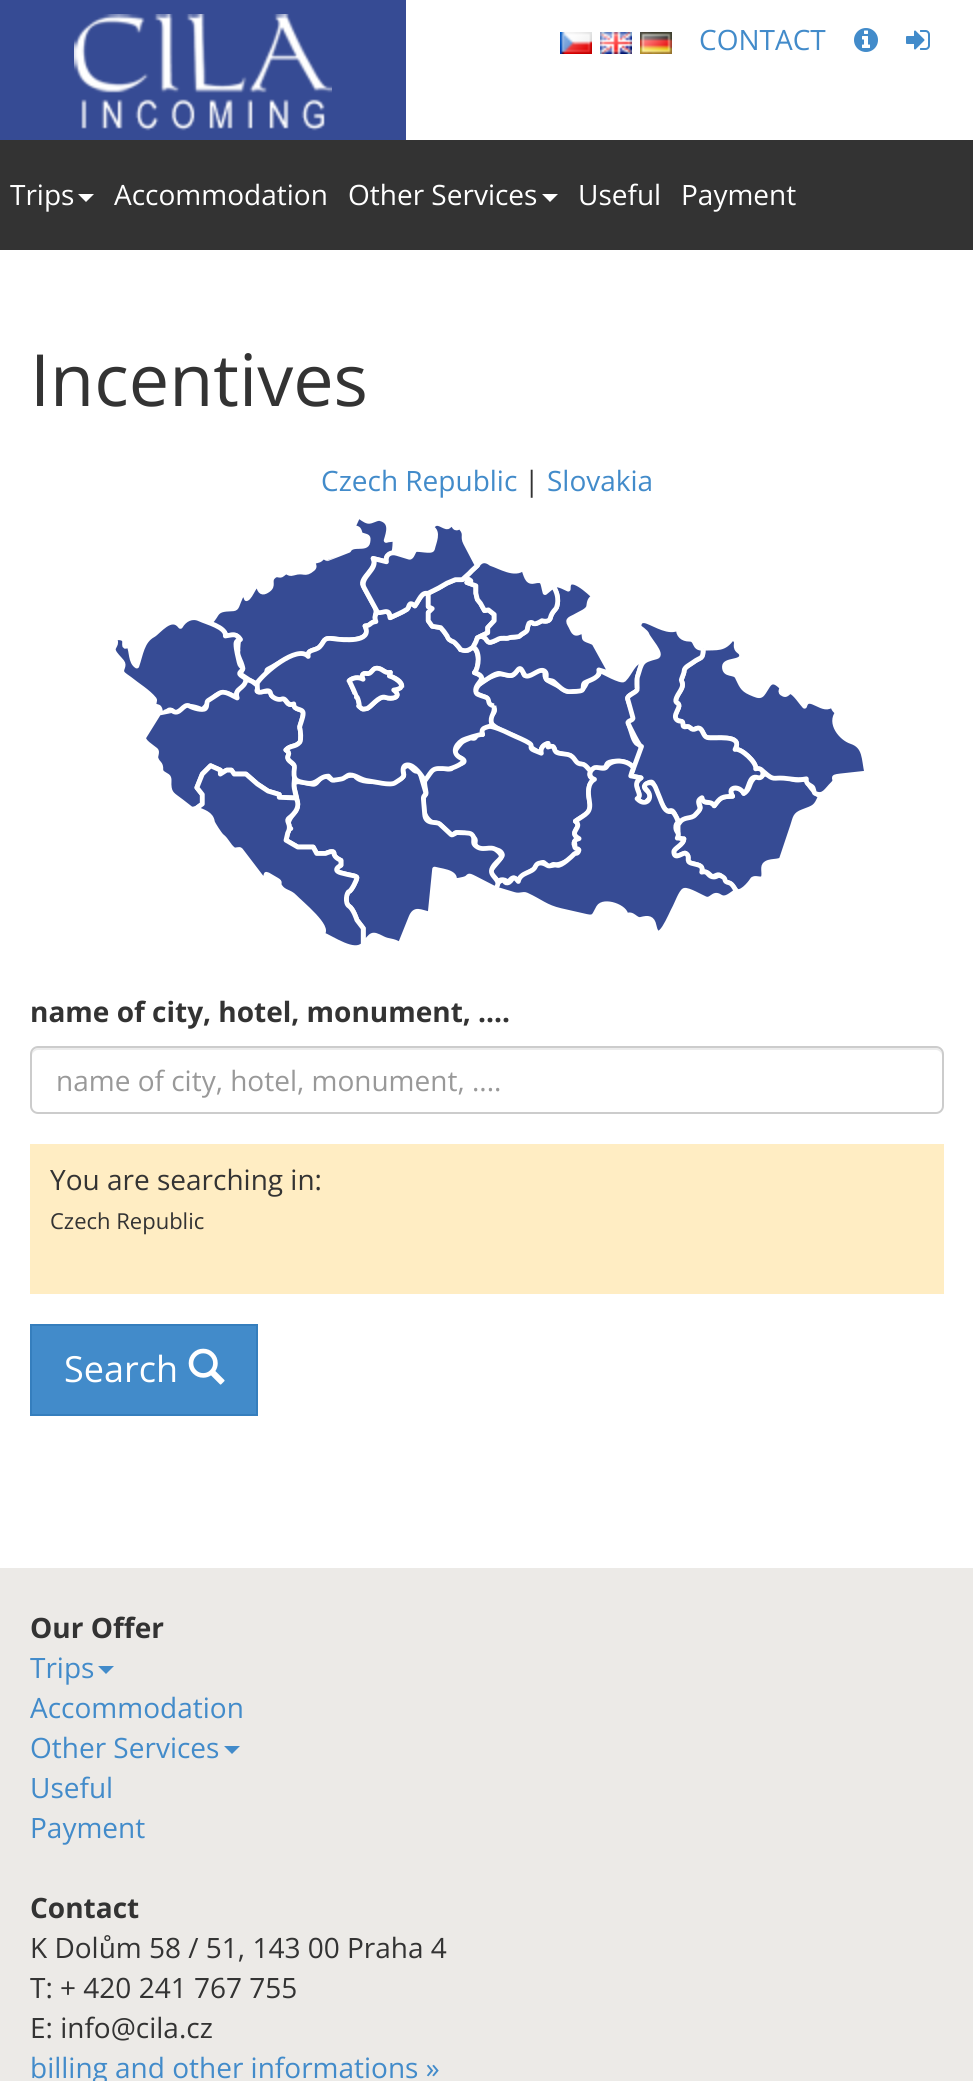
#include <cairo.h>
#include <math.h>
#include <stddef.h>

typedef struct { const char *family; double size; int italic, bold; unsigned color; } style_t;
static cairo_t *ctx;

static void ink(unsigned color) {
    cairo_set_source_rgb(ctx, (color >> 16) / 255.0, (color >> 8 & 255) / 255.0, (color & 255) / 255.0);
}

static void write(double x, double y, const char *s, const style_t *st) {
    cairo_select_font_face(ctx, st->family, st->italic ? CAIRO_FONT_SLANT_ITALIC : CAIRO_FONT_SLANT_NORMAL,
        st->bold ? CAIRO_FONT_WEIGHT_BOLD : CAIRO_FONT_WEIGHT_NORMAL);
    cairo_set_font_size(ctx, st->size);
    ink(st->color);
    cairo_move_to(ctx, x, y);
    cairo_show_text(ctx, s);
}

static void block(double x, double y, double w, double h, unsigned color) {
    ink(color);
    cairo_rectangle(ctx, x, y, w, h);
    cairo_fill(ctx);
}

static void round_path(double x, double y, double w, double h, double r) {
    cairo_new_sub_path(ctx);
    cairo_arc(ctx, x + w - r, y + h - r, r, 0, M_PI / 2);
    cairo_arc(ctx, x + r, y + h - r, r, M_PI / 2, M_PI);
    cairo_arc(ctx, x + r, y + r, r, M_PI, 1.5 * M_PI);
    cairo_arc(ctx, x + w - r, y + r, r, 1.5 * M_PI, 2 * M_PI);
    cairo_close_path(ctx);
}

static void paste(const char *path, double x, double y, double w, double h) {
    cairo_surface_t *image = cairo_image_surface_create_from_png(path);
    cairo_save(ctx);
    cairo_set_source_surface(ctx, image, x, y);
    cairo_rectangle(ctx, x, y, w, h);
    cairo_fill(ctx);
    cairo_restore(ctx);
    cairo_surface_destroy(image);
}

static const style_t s1 = {"Open Sans", 28, 0, 0, 0x428bca};
static const style_t s2 = {"Open Sans", 28, 0, 0, 0xffffff};
static const style_t s3 = {"Open Sans", 72, 0, 0, 0x333333};
static const style_t s4 = {"Open Sans", 28, 0, 0, 0x333333};
static const style_t s5 = {"Open Sans", 28, 0, 1, 0x333333};
static const style_t s6 = {"Open Sans", 28, 0, 0, 0x999999};
static const style_t s7 = {"Open Sans", 22, 0, 0, 0x333333};
static const style_t s8 = {"Open Sans", 36, 0, 0, 0xffffff};

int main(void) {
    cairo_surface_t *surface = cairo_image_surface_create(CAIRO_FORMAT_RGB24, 973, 2081);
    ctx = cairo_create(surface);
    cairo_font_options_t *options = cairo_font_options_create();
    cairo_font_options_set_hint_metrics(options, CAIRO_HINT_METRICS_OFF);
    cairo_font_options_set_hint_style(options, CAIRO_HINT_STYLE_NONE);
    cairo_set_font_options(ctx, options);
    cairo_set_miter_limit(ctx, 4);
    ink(0xffffff);
    cairo_paint(ctx);
    block(0, 0, 406, 140, 0x364b94);
    paste("pic1.png", 74, 14, 258, 117);
    paste("pic2.png", 560, 32, 32, 22);
    paste("pic3.png", 600, 32, 32, 22);
    paste("pic4.png", 640, 32, 32, 22);
    write(699, 50, "CONTACT", &s1);
    paste("pic5.png", 854, 28, 24, 24);
    paste("pic6.png", 906, 30, 24, 20);
    block(0, 140, 973, 110, 0x333333);
    write(10, 205, "Trips", &s2);
    cairo_new_path(ctx);
    cairo_move_to(ctx, 78, 194);
    cairo_line_to(ctx, 94, 194);
    cairo_line_to(ctx, 86, 202);
    cairo_close_path(ctx);
    cairo_fill(ctx);
    write(114, 205, "Accommodation", &s2);
    write(348, 205, "Other Services", &s2);
    cairo_new_path(ctx);
    cairo_move_to(ctx, 542, 194);
    cairo_line_to(ctx, 558, 194);
    cairo_line_to(ctx, 550, 202);
    cairo_close_path(ctx);
    cairo_fill(ctx);
    write(578, 205, "Useful", &s2);
    write(681, 205, "Payment", &s2);
    write(30, 406, "Incentives", &s3);
    write(321, 491, "Czech Republic", &s1);
    write(524, 491, "|", &s4);
    write(547, 491, "Slovakia", &s1);
    paste("pic7.png", 115, 519, 749, 427);
    write(30, 1022, "name of city, hotel, monument, ....", &s5);
    ink(0xececec);
    cairo_new_path(ctx);
    cairo_move_to(ctx, 38, 1050);
    cairo_line_to(ctx, 936, 1050);
    cairo_curve_to(ctx, 939, 1050, 942, 1053, 942, 1056);
    cairo_line_to(ctx, 942, 1054);
    cairo_curve_to(ctx, 942, 1051, 939, 1048, 936, 1048);
    cairo_line_to(ctx, 38, 1048);
    cairo_curve_to(ctx, 35, 1048, 32, 1051, 32, 1054);
    cairo_line_to(ctx, 32, 1056);
    cairo_curve_to(ctx, 32, 1053, 35, 1050, 38, 1050);
    cairo_close_path(ctx);
    cairo_fill(ctx);
    round_path(31, 1047, 912, 66, 7);
    ink(0xcccccc);
    cairo_stroke(ctx);
    write(56, 1091, "name of city, hotel, monument, ....", &s6);
    block(30, 1144, 914, 150, 0xffedc3);
    write(50, 1190, "You are searching in:", &s4);
    write(50, 1229, "Czech Republic", &s7);
    ink(0x428bca);
    cairo_rectangle(ctx, 31, 1325, 226, 90);
    cairo_fill_preserve(ctx);
    ink(0x357ebd);
    cairo_stroke(ctx);
    write(64, 1382, "Search", &s8);
    paste("pic8.png", 188, 1348, 37, 37);
    block(0, 1568, 973, 513, 0xeceae7);
    write(30, 1638, "Our Offer", &s5);
    write(30, 1678, "Trips", &s1);
    cairo_new_path(ctx);
    cairo_move_to(ctx, 98, 1666);
    cairo_line_to(ctx, 114, 1666);
    cairo_line_to(ctx, 106, 1674);
    cairo_close_path(ctx);
    cairo_fill(ctx);
    write(30, 1718, "Accommodation", &s1);
    write(30, 1758, "Other Services", &s1);
    cairo_new_path(ctx);
    cairo_move_to(ctx, 224, 1746);
    cairo_line_to(ctx, 240, 1746);
    cairo_line_to(ctx, 232, 1754);
    cairo_close_path(ctx);
    cairo_fill(ctx);
    write(30, 1798, "Useful", &s1);
    write(30, 1838, "Payment", &s1);
    write(30, 1918, "Contact", &s5);
    write(30, 1958, "K Dolům 58 / 51, 143 00 Praha 4", &s4);
    write(30, 1998, "T: + 420 241 767 755", &s4);
    write(30, 2038, "E: info@cila.cz", &s4);
    write(30, 2078, "billing and other informations »", &s1);
    cairo_surface_write_to_png(surface, "screenshot.png");
    cairo_font_options_destroy(options);
    cairo_destroy(ctx);
    cairo_surface_destroy(surface);
    return 0;
}
